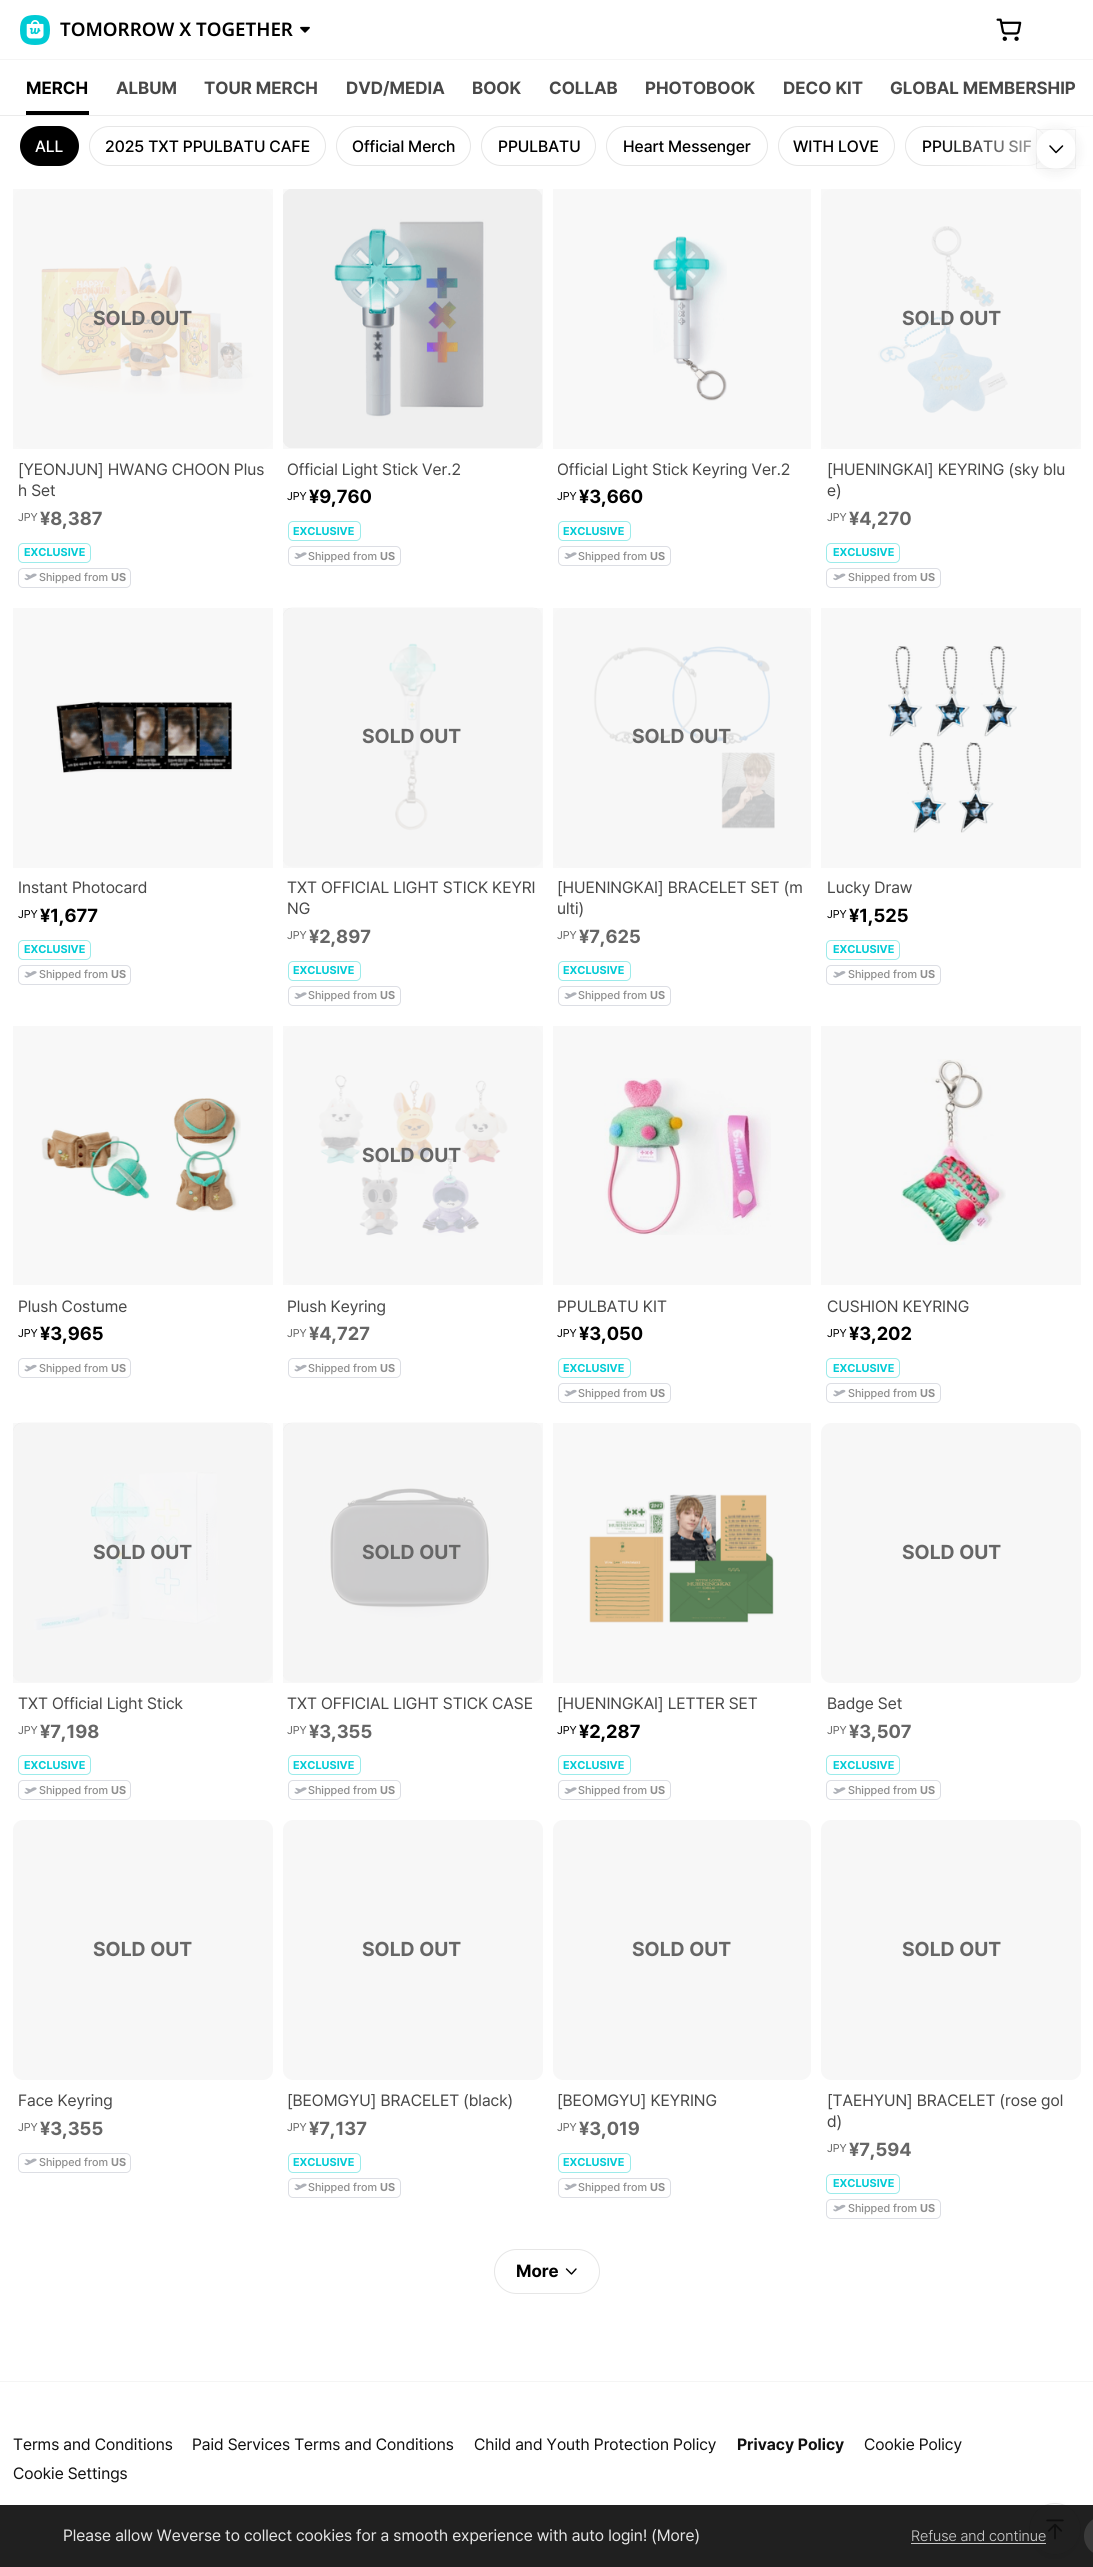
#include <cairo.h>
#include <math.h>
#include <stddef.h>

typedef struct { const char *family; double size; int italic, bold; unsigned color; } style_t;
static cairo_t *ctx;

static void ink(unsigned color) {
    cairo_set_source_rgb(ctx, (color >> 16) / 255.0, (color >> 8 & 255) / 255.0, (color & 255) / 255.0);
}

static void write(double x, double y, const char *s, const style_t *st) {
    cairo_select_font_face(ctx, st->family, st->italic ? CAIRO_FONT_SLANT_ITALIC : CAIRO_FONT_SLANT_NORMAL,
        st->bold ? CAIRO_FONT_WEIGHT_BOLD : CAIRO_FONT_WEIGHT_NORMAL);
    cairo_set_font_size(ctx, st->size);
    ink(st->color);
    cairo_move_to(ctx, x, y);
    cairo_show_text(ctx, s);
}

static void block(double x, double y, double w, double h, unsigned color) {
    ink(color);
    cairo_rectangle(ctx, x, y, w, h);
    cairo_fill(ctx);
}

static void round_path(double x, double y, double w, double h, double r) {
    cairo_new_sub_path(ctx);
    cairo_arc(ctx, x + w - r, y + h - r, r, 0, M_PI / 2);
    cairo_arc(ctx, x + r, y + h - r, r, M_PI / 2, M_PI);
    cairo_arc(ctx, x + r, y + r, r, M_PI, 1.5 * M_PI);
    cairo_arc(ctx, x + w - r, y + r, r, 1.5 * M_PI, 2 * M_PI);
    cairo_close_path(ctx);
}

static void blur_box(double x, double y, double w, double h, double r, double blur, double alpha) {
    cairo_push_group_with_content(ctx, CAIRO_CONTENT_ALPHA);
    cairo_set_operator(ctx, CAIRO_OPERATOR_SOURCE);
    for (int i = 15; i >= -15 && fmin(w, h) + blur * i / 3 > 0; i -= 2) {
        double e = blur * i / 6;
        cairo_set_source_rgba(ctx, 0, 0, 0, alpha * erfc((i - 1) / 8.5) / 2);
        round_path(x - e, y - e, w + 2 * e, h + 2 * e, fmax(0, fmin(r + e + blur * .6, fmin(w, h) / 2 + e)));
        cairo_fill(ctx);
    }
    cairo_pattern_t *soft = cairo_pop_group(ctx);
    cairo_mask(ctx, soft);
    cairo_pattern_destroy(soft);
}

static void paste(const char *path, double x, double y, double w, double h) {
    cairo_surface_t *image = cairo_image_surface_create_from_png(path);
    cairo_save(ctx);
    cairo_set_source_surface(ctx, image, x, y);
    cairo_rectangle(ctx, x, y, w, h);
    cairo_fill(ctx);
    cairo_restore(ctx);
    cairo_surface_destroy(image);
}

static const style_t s1 = {"Noto Sans SemiBold", 18.75, 0, 0, 0x000000};
static const style_t s2 = {"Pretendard", 17.5, 0, 1, 0x000000};
static const style_t s3 = {"Pretendard", 17.5, 0, 1, 0x484848};
static const style_t s4 = {"Pretendard Medium", 16.25, 0, 0, 0x000000};
static const style_t s5 = {"Pretendard Medium", 16.25, 0, 0, 0xffffff};
static const style_t s6 = {"Pretendard", 20, 0, 1, 0x666666};
static const style_t s7 = {"Pretendard", 16.25, 0, 0, 0x484848};
static const style_t s8 = {"Pretendard", 11.25, 0, 0, 0x666666};
static const style_t s9 = {"Pretendard", 18.75, 0, 1, 0x666666};
static const style_t s10 = {"Pretendard", 11.25, 0, 1, 0x00cbd5};
static const style_t s11 = {"Pretendard Medium", 11.25, 0, 0, 0x8e8e8e};
static const style_t s12 = {"Pretendard", 11.25, 0, 1, 0x8e8e8e};
static const style_t s13 = {"Pretendard", 11.25, 0, 0, 0x000000};
static const style_t s14 = {"Pretendard", 18.75, 0, 1, 0x000000};
static const style_t s15 = {"Pretendard", 16.25, 0, 0, 0x111111};
static const style_t s16 = {"Pretendard", 16.25, 0, 1, 0x111111};
static const style_t s17 = {"Pretendard", 16.25, 0, 0, 0xe4e4e4};
static const style_t s18 = {"Pretendard Light", 15, 0, 0, 0xc8c8c8};

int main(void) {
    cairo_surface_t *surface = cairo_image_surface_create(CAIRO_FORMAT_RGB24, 1093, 2567);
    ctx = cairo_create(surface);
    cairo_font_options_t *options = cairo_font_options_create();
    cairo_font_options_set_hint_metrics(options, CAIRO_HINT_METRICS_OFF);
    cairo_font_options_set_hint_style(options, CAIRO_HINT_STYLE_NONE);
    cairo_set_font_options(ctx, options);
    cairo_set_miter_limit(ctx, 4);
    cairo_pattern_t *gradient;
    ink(0xffffff);
    cairo_paint(ctx);
    block(0, 59, 1093, 1, 0xf5f5f5);
    paste("pic1.png", 20, 15, 30, 30);
    write(60, 36, "TOMORROW X TOGETHER", &s1);
    paste("pic2.png", 300, 26, 10, 7);
    paste("pic3.png", 996, 18, 26, 23);
    block(0, 115, 1093, 1, 0xebebeb);
    write(26, 94, "MERCH", &s2);
    block(26, 111, 63, 4, 0x000000);
    write(116, 94, "ALBUM", &s3);
    write(204, 94, "TOUR MERCH", &s3);
    write(346, 94, "DVD/MEDIA", &s3);
    write(472, 94, "BOOK", &s3);
    write(549, 94, "COLLAB", &s3);
    write(645, 94, "PHOTOBOOK", &s3);
    write(783, 94, "DECO KIT", &s3);
    write(890, 94, "GLOBAL MEMBERSHIP", &s3);
    round_path(905.5, 126.5, 142, 39, 19.5);
    ink(0xe6e6e6);
    cairo_set_line_width(ctx, 1);
    cairo_stroke(ctx);
    write(922, 152, "PPULBATU SIF", &s4);
    round_path(1058.5, 126.5, 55, 39, 19.5);
    ink(0xe6e6e6);
    cairo_stroke(ctx);
    gradient = cairo_pattern_create_linear(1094, 149, 931, 149);
    cairo_pattern_add_color_stop_rgba(gradient, 0, 1, 1, 1, 1);
    cairo_pattern_add_color_stop_rgba(gradient, 1, 1, 1, 1, 0);
    cairo_set_source(ctx, gradient);
    cairo_pattern_destroy(gradient);
    cairo_rectangle(ctx, 935, 126, 158, 40);
    cairo_fill(ctx);
    paste("pic9.png", 877, 226, 131, 187);
    cairo_set_source_rgba(ctx, 0, 0, 0, 0.03);
    cairo_rectangle(ctx, 821, 189, 260, 260);
    cairo_fill(ctx);
    cairo_set_source_rgba(ctx, 0.969, 0.969, 0.969, 0.78);
    round_path(821, 189, 260, 260, 10);
    cairo_fill(ctx);
    ink(0x000000);
    blur_box(1036, 131, 40, 40, 20, 7.5, 0.08);
    ink(0xffffff);
    cairo_arc(ctx, 1056, 149, 20, 0, 2 * M_PI);
    cairo_fill(ctx);
    cairo_rectangle(ctx, 1036.5, 129.5, 39, 39);
    cairo_set_source_rgba(ctx, 0, 0, 0, 0.04);
    cairo_stroke(ctx);
    cairo_new_path(ctx);
    cairo_move_to(ctx, 1050, 146);
    cairo_line_to(ctx, 1056, 152.5);
    cairo_line_to(ctx, 1062.5, 146);
    ink(0x000000);
    cairo_set_line_width(ctx, 1.5);
    cairo_set_line_cap(ctx, CAIRO_LINE_CAP_ROUND);
    cairo_set_line_join(ctx, CAIRO_LINE_JOIN_ROUND);
    cairo_stroke(ctx);
    round_path(20, 126, 59, 40, 20);
    cairo_fill(ctx);
    write(35, 152, "ALL", &s5);
    round_path(89.5, 126.5, 236, 39, 19.5);
    ink(0xe6e6e6);
    cairo_set_line_width(ctx, 1);
    cairo_set_line_cap(ctx, CAIRO_LINE_CAP_BUTT);
    cairo_set_line_join(ctx, CAIRO_LINE_JOIN_MITER);
    cairo_stroke(ctx);
    write(105, 152, "2025 TXT PPULBATU CAFE", &s4);
    round_path(336.5, 126.5, 134, 39, 19.5);
    ink(0xe6e6e6);
    cairo_stroke(ctx);
    write(352, 152, "Official Merch", &s4);
    round_path(481.5, 126.5, 114, 39, 19.5);
    ink(0xe6e6e6);
    cairo_stroke(ctx);
    write(498, 152, "PPULBATU", &s4);
    round_path(606.5, 126.5, 161, 39, 19.5);
    ink(0xe6e6e6);
    cairo_stroke(ctx);
    write(623, 152, "Heart Messenger", &s4);
    round_path(778.5, 126.5, 116, 39, 19.5);
    ink(0xe6e6e6);
    cairo_stroke(ctx);
    write(793, 152, "WITH LOVE", &s4);
    paste("pic4.png", 39, 262, 215, 135);
    cairo_set_source_rgba(ctx, 0, 0, 0, 0.03);
    cairo_rectangle(ctx, 13, 189, 260, 260);
    cairo_fill(ctx);
    cairo_set_source_rgba(ctx, 0.969, 0.969, 0.969, 0.78);
    round_path(13, 189, 260, 260, 10);
    cairo_fill(ctx);
    write(93, 325, "SOLD OUT", &s6);
    write(18, 475, "[YEONJUN] HWANG CHOON Plus", &s7);
    write(18, 496, "h Set", &s7);
    write(18, 521, "JPY", &s8);
    write(40, 525, "¥8,387", &s9);
    round_path(18.5, 543.5, 72, 19, 4.5);
    ink(0x9cebea);
    cairo_stroke(ctx);
    write(24, 556, "EXCLUSIVE", &s10);
    paste("pic5.png", 24, 573, 13, 8);
    round_path(18.5, 568.5, 112, 19, 4.5);
    ink(0xdcdee4);
    cairo_stroke(ctx);
    write(39, 581, "Shipped from", &s11);
    write(111, 581, "US", &s12);
    paste("pic6.png", 283, 189, 259, 259);
    cairo_set_source_rgba(ctx, 0, 0, 0, 0.03);
    cairo_rectangle(ctx, 283, 189, 260, 260);
    cairo_fill(ctx);
    write(287, 475, "Official Light Stick Ver.2", &s7);
    write(287, 500, "JPY", &s13);
    write(309, 503, "¥9,760", &s14);
    round_path(288.5, 521.5, 72, 19, 4.5);
    ink(0x9cebea);
    cairo_stroke(ctx);
    write(293, 535, "EXCLUSIVE", &s10);
    paste("pic7.png", 294, 552, 13, 7);
    round_path(288.5, 546.5, 112, 19, 4.5);
    ink(0xdcdee4);
    cairo_stroke(ctx);
    write(308, 560, "Shipped from", &s11);
    write(380, 560, "US", &s12);
    paste("pic8.png", 653, 236, 74, 165);
    cairo_set_source_rgba(ctx, 0, 0, 0, 0.03);
    cairo_rectangle(ctx, 553, 189, 258, 260);
    cairo_fill(ctx);
    cairo_save(ctx);
    cairo_rectangle(ctx, 558, 459, 248, 21);
    cairo_clip(ctx);
    write(557, 475, "Official Light Stick Keyring Ver.2", &s7);
    cairo_restore(ctx);
    write(557, 500, "JPY", &s13);
    write(579, 503, "¥3,660", &s14);
    round_path(558.5, 521.5, 72, 19, 4.5);
    ink(0x9cebea);
    cairo_stroke(ctx);
    write(563, 535, "EXCLUSIVE", &s10);
    paste("pic7.png", 564, 552, 13, 7);
    round_path(558.5, 546.5, 112, 19, 4.5);
    ink(0xdcdee4);
    cairo_stroke(ctx);
    write(578, 560, "Shipped from", &s11);
    write(650, 560, "US", &s12);
    write(902, 325, "SOLD OUT", &s6);
    write(827, 475, "[HUENINGKAI] KEYRING (sky blu", &s7);
    write(827, 496, "e)", &s7);
    write(827, 521, "JPY", &s8);
    write(849, 525, "¥4,270", &s9);
    round_path(826.5, 543.5, 73, 19, 4.5);
    ink(0x9cebea);
    cairo_stroke(ctx);
    write(833, 556, "EXCLUSIVE", &s10);
    paste("pic10.png", 833, 573, 13, 8);
    round_path(826.5, 568.5, 114, 19, 4.5);
    ink(0xdcdee4);
    cairo_stroke(ctx);
    write(848, 581, "Shipped from", &s11);
    write(920, 581, "US", &s12);
    paste("pic11.png", 56, 701, 176, 72);
    cairo_set_source_rgba(ctx, 0, 0, 0, 0.03);
    cairo_rectangle(ctx, 13, 608, 260, 260);
    cairo_fill(ctx);
    write(18, 893, "Instant Photocard", &s7);
    write(18, 918, "JPY", &s13);
    write(40, 922, "¥1,677", &s14);
    round_path(18.5, 940.5, 72, 19, 4.5);
    ink(0x9cebea);
    cairo_stroke(ctx);
    write(24, 953, "EXCLUSIVE", &s10);
    paste("pic12.png", 24, 971, 13, 7);
    round_path(18.5, 965.5, 112, 19, 4.5);
    ink(0xdcdee4);
    cairo_stroke(ctx);
    write(39, 978, "Shipped from", &s11);
    write(111, 978, "US", &s12);
    paste("pic13.png", 283, 607, 259, 260);
    cairo_set_source_rgba(ctx, 0, 0, 0, 0.03);
    cairo_rectangle(ctx, 283, 608, 260, 260);
    cairo_fill(ctx);
    cairo_set_source_rgba(ctx, 0.969, 0.969, 0.969, 0.78);
    round_path(283, 608, 260, 260, 10);
    cairo_fill(ctx);
    write(362, 743, "SOLD OUT", &s6);
    write(287, 893, "TXT OFFICIAL LIGHT STICK KEYRI", &s7);
    write(287, 914, "NG", &s7);
    write(287, 939, "JPY", &s8);
    write(309, 943, "¥2,897", &s9);
    round_path(288.5, 961.5, 72, 19, 4.5);
    ink(0x9cebea);
    cairo_stroke(ctx);
    write(293, 974, "EXCLUSIVE", &s10);
    paste("pic7.png", 294, 992, 13, 7);
    round_path(288.5, 986.5, 112, 19, 4.5);
    ink(0xdcdee4);
    cairo_stroke(ctx);
    write(308, 999, "Shipped from", &s11);
    write(380, 999, "US", &s12);
    paste("pic14.png", 593, 646, 182, 183);
    cairo_set_source_rgba(ctx, 0, 0, 0, 0.03);
    cairo_rectangle(ctx, 553, 608, 258, 260);
    cairo_fill(ctx);
    cairo_set_source_rgba(ctx, 0.969, 0.969, 0.969, 0.78);
    round_path(553, 608, 258, 260, 10);
    cairo_fill(ctx);
    write(632, 743, "SOLD OUT", &s6);
    write(557, 893, "[HUENINGKAI] BRACELET SET (m", &s7);
    write(557, 914, "ulti)", &s7);
    write(557, 939, "JPY", &s8);
    write(579, 943, "¥7,625", &s9);
    round_path(558.5, 961.5, 72, 19, 4.5);
    ink(0x9cebea);
    cairo_stroke(ctx);
    write(563, 974, "EXCLUSIVE", &s10);
    paste("pic7.png", 564, 992, 13, 7);
    round_path(558.5, 986.5, 112, 19, 4.5);
    ink(0xdcdee4);
    cairo_stroke(ctx);
    write(578, 999, "Shipped from", &s11);
    write(650, 999, "US", &s12);
    paste("pic15.png", 888, 646, 129, 187);
    cairo_set_source_rgba(ctx, 0, 0, 0, 0.03);
    cairo_rectangle(ctx, 821, 608, 260, 260);
    cairo_fill(ctx);
    write(827, 893, "Lucky Draw", &s7);
    write(827, 918, "JPY", &s13);
    write(849, 922, "¥1,525", &s14);
    round_path(826.5, 940.5, 73, 19, 4.5);
    ink(0x9cebea);
    cairo_stroke(ctx);
    write(833, 953, "EXCLUSIVE", &s10);
    paste("pic16.png", 833, 971, 13, 7);
    round_path(826.5, 965.5, 114, 19, 4.5);
    ink(0xdcdee4);
    cairo_stroke(ctx);
    write(848, 978, "Shipped from", &s11);
    write(920, 978, "US", &s12);
    paste("pic17.png", 41, 1098, 200, 114);
    cairo_set_source_rgba(ctx, 0, 0, 0, 0.03);
    cairo_rectangle(ctx, 13, 1026, 260, 259);
    cairo_fill(ctx);
    write(18, 1312, "Plush Costume", &s7);
    write(18, 1337, "JPY", &s13);
    write(40, 1340, "¥3,965", &s14);
    paste("pic18.png", 24, 1364, 13, 8);
    round_path(18.5, 1358.5, 112, 19, 4.5);
    ink(0xdcdee4);
    cairo_stroke(ctx);
    write(39, 1372, "Shipped from", &s11);
    write(111, 1372, "US", &s12);
    paste("pic19.png", 318, 1075, 190, 163);
    cairo_set_source_rgba(ctx, 0, 0, 0, 0.03);
    cairo_rectangle(ctx, 283, 1026, 260, 259);
    cairo_fill(ctx);
    cairo_set_source_rgba(ctx, 0.969, 0.969, 0.969, 0.78);
    round_path(283, 1026, 260, 259, 10);
    cairo_fill(ctx);
    write(362, 1162, "SOLD OUT", &s6);
    write(287, 1312, "Plush Keyring", &s7);
    write(287, 1337, "JPY", &s8);
    write(309, 1340, "¥4,727", &s9);
    paste("pic18.png", 294, 1364, 13, 8);
    round_path(288.5, 1358.5, 112, 19, 4.5);
    ink(0xdcdee4);
    cairo_stroke(ctx);
    write(308, 1372, "Shipped from", &s11);
    write(380, 1372, "US", &s12);
    paste("pic20.png", 604, 1078, 167, 157);
    cairo_set_source_rgba(ctx, 0, 0, 0, 0.03);
    cairo_rectangle(ctx, 553, 1026, 258, 259);
    cairo_fill(ctx);
    write(557, 1312, "PPULBATU KIT", &s7);
    write(557, 1337, "JPY", &s13);
    write(579, 1340, "¥3,050", &s14);
    round_path(558.5, 1358.5, 72, 19, 4.5);
    ink(0x9cebea);
    cairo_stroke(ctx);
    write(563, 1372, "EXCLUSIVE", &s10);
    paste("pic18.png", 564, 1389, 13, 8);
    round_path(558.5, 1383.5, 112, 19, 4.5);
    ink(0xdcdee4);
    cairo_stroke(ctx);
    write(578, 1397, "Shipped from", &s11);
    write(650, 1397, "US", &s12);
    paste("pic21.png", 901, 1059, 105, 186);
    cairo_set_source_rgba(ctx, 0, 0, 0, 0.03);
    cairo_rectangle(ctx, 821, 1026, 260, 259);
    cairo_fill(ctx);
    write(827, 1312, "CUSHION KEYRING", &s7);
    write(827, 1337, "JPY", &s13);
    write(849, 1340, "¥3,202", &s14);
    round_path(826.5, 1358.5, 73, 19, 4.5);
    ink(0x9cebea);
    cairo_stroke(ctx);
    write(833, 1372, "EXCLUSIVE", &s10);
    paste("pic22.png", 833, 1389, 13, 8);
    round_path(826.5, 1383.5, 114, 19, 4.5);
    ink(0xdcdee4);
    cairo_stroke(ctx);
    write(848, 1397, "Shipped from", &s11);
    write(920, 1397, "US", &s12);
    paste("pic23.png", 13, 1422, 259, 260);
    cairo_set_source_rgba(ctx, 0, 0, 0, 0.03);
    cairo_rectangle(ctx, 13, 1423, 260, 260);
    cairo_fill(ctx);
    cairo_set_source_rgba(ctx, 0.969, 0.969, 0.969, 0.78);
    round_path(13, 1423, 260, 260, 10);
    cairo_fill(ctx);
    write(93, 1559, "SOLD OUT", &s6);
    write(18, 1709, "TXT Official Light Stick", &s7);
    write(18, 1734, "JPY", &s8);
    write(40, 1738, "¥7,198", &s9);
    round_path(18.5, 1755.5, 72, 19, 4.5);
    ink(0x9cebea);
    cairo_stroke(ctx);
    write(24, 1769, "EXCLUSIVE", &s10);
    paste("pic7.png", 24, 1787, 13, 7);
    round_path(18.5, 1780.5, 112, 19, 4.5);
    ink(0xdcdee4);
    cairo_stroke(ctx);
    write(39, 1794, "Shipped from", &s11);
    write(111, 1794, "US", &s12);
    paste("pic24.png", 283, 1422, 259, 260);
    cairo_set_source_rgba(ctx, 0, 0, 0, 0.03);
    cairo_rectangle(ctx, 283, 1423, 260, 260);
    cairo_fill(ctx);
    cairo_set_source_rgba(ctx, 0.969, 0.969, 0.969, 0.78);
    round_path(283, 1423, 260, 260, 10);
    cairo_fill(ctx);
    write(362, 1559, "SOLD OUT", &s6);
    write(287, 1709, "TXT OFFICIAL LIGHT STICK CASE", &s7);
    write(287, 1734, "JPY", &s8);
    write(309, 1738, "¥3,355", &s9);
    round_path(288.5, 1755.5, 72, 19, 4.5);
    ink(0x9cebea);
    cairo_stroke(ctx);
    write(293, 1769, "EXCLUSIVE", &s10);
    paste("pic7.png", 294, 1787, 13, 7);
    round_path(288.5, 1780.5, 112, 19, 4.5);
    ink(0xdcdee4);
    cairo_stroke(ctx);
    write(308, 1794, "Shipped from", &s11);
    write(380, 1794, "US", &s12);
    paste("pic25.png", 589, 1494, 185, 129);
    cairo_set_source_rgba(ctx, 0, 0, 0, 0.03);
    cairo_rectangle(ctx, 553, 1423, 258, 260);
    cairo_fill(ctx);
    write(557, 1709, "[HUENINGKAI] LETTER SET", &s7);
    write(557, 1734, "JPY", &s13);
    write(579, 1738, "¥2,287", &s14);
    round_path(558.5, 1755.5, 72, 19, 4.5);
    ink(0x9cebea);
    cairo_stroke(ctx);
    write(563, 1769, "EXCLUSIVE", &s10);
    paste("pic7.png", 564, 1787, 13, 7);
    round_path(558.5, 1780.5, 112, 19, 4.5);
    ink(0xdcdee4);
    cairo_stroke(ctx);
    write(578, 1794, "Shipped from", &s11);
    write(650, 1794, "US", &s12);
    ink(0xf7f7f7);
    round_path(821, 1423, 260, 260, 10);
    cairo_fill(ctx);
    write(902, 1559, "SOLD OUT", &s6);
    write(827, 1709, "Badge Set", &s7);
    write(827, 1734, "JPY", &s8);
    write(849, 1738, "¥3,507", &s9);
    round_path(826.5, 1755.5, 73, 19, 4.5);
    ink(0x9cebea);
    cairo_stroke(ctx);
    write(833, 1769, "EXCLUSIVE", &s10);
    paste("pic26.png", 833, 1787, 13, 7);
    round_path(826.5, 1780.5, 114, 19, 4.5);
    ink(0xdcdee4);
    cairo_stroke(ctx);
    write(848, 1794, "Shipped from", &s11);
    write(920, 1794, "US", &s12);
    ink(0xf7f7f7);
    round_path(13, 1820, 260, 260, 10);
    cairo_fill(ctx);
    write(93, 1956, "SOLD OUT", &s6);
    write(18, 2106, "Face Keyring", &s7);
    write(18, 2131, "JPY", &s8);
    write(40, 2135, "¥3,355", &s9);
    paste("pic5.png", 24, 2158, 13, 8);
    round_path(18.5, 2153.5, 112, 19, 4.5);
    ink(0xdcdee4);
    cairo_stroke(ctx);
    write(39, 2166, "Shipped from", &s11);
    write(111, 2166, "US", &s12);
    ink(0xf7f7f7);
    round_path(283, 1820, 260, 260, 10);
    cairo_fill(ctx);
    write(362, 1956, "SOLD OUT", &s6);
    write(287, 2106, "[BEOMGYU] BRACELET (black)", &s7);
    write(287, 2131, "JPY", &s8);
    write(309, 2135, "¥7,137", &s9);
    round_path(288.5, 2153.5, 72, 19, 4.5);
    ink(0x9cebea);
    cairo_stroke(ctx);
    write(293, 2166, "EXCLUSIVE", &s10);
    paste("pic5.png", 294, 2183, 13, 8);
    round_path(288.5, 2178.5, 112, 19, 4.5);
    ink(0xdcdee4);
    cairo_stroke(ctx);
    write(308, 2191, "Shipped from", &s11);
    write(380, 2191, "US", &s12);
    ink(0xf7f7f7);
    round_path(553, 1820, 258, 260, 10);
    cairo_fill(ctx);
    write(632, 1956, "SOLD OUT", &s6);
    write(557, 2106, "[BEOMGYU] KEYRING", &s7);
    write(557, 2131, "JPY", &s8);
    write(579, 2135, "¥3,019", &s9);
    round_path(558.5, 2153.5, 72, 19, 4.5);
    ink(0x9cebea);
    cairo_stroke(ctx);
    write(563, 2166, "EXCLUSIVE", &s10);
    paste("pic5.png", 564, 2183, 13, 8);
    round_path(558.5, 2178.5, 112, 19, 4.5);
    ink(0xdcdee4);
    cairo_stroke(ctx);
    write(578, 2191, "Shipped from", &s11);
    write(650, 2191, "US", &s12);
    ink(0xf7f7f7);
    round_path(821, 1820, 260, 260, 10);
    cairo_fill(ctx);
    write(902, 1956, "SOLD OUT", &s6);
    write(827, 2106, "[TAEHYUN] BRACELET (rose gol", &s7);
    write(827, 2127, "d)", &s7);
    write(827, 2152, "JPY", &s8);
    write(849, 2156, "¥7,594", &s9);
    round_path(826.5, 2174.5, 73, 19, 4.5);
    ink(0x9cebea);
    cairo_stroke(ctx);
    write(833, 2187, "EXCLUSIVE", &s10);
    paste("pic22.png", 833, 2204, 13, 8);
    round_path(826.5, 2199.5, 114, 19, 4.5);
    ink(0xdcdee4);
    cairo_stroke(ctx);
    write(848, 2212, "Shipped from", &s11);
    write(920, 2212, "US", &s12);
    round_path(494.5, 2249.5, 105, 44, 22);
    cairo_set_source_rgba(ctx, 0, 0, 0, 0.1);
    cairo_stroke(ctx);
    write(516, 2277, "More", &s2);
    cairo_new_path(ctx);
    cairo_move_to(ctx, 566.5, 2269);
    cairo_line_to(ctx, 571.5, 2274);
    cairo_line_to(ctx, 576, 2269);
    cairo_set_line_width(ctx, 1.4);
    cairo_set_line_cap(ctx, CAIRO_LINE_CAP_ROUND);
    cairo_set_line_join(ctx, CAIRO_LINE_JOIN_ROUND);
    cairo_stroke(ctx);
    block(0, 2381, 1093, 1, 0xf5f5f5);
    write(13, 2450, "Terms and Conditions", &s15);
    write(192, 2450, "Paid Services Terms and Conditions", &s15);
    write(474, 2450, "Child and Youth Protection Policy", &s15);
    write(737, 2450, "Privacy Policy", &s16);
    write(864, 2450, "Cookie Policy", &s15);
    write(13, 2479, "Cookie Settings", &s15);
    ink(0x000000);
    blur_box(1029, 2508, 52, 52, 26, 5, 0.06);
    ink(0xffffff);
    cairo_arc(ctx, 1055, 2529, 26, 0, 2 * M_PI);
    cairo_fill(ctx);
    paste("pic27.png", 1046, 2519, 18, 21);
    cairo_arc(ctx, 1055, 2529, 25.5, 0, 2 * M_PI);
    ink(0xe5e5e5);
    cairo_set_line_width(ctx, 1);
    cairo_set_line_cap(ctx, CAIRO_LINE_CAP_BUTT);
    cairo_set_line_join(ctx, CAIRO_LINE_JOIN_MITER);
    cairo_stroke(ctx);
    cairo_set_source_rgba(ctx, 0.067, 0.067, 0.067, 0.93);
    cairo_rectangle(ctx, 0, 2505, 1093, 62);
    cairo_fill(ctx);
    write(63, 2541, "Please allow Weverse to collect cookies for a smooth experience with auto login! (More)", &s17);
    write(911, 2541, "Refuse and continue", &s18);
    block(911, 2543, 135, 1, 0xc8c8c8);
    ink(0x3a3a3a);
    round_path(1084, 2516, 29, 40, 20);
    cairo_fill(ctx);
    cairo_surface_write_to_png(surface, "screenshot.png");
    cairo_font_options_destroy(options);
    cairo_destroy(ctx);
    cairo_surface_destroy(surface);
    return 0;
}
